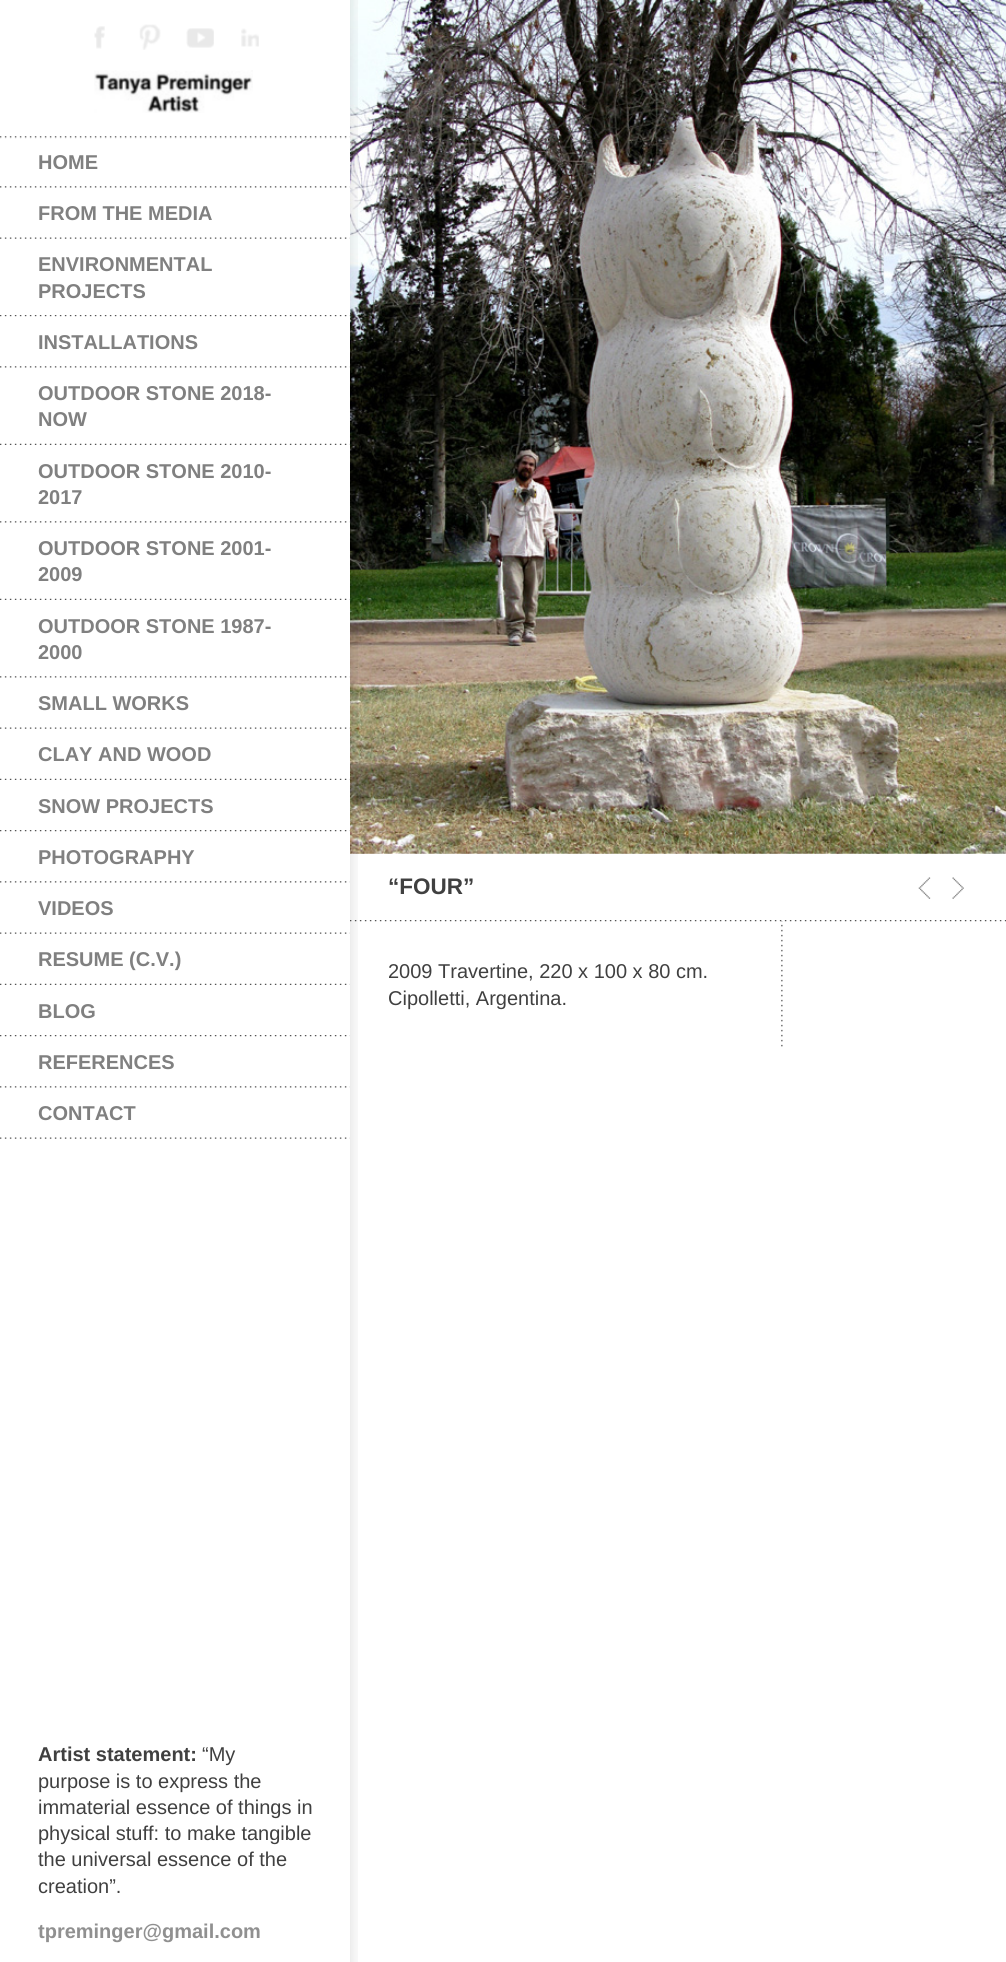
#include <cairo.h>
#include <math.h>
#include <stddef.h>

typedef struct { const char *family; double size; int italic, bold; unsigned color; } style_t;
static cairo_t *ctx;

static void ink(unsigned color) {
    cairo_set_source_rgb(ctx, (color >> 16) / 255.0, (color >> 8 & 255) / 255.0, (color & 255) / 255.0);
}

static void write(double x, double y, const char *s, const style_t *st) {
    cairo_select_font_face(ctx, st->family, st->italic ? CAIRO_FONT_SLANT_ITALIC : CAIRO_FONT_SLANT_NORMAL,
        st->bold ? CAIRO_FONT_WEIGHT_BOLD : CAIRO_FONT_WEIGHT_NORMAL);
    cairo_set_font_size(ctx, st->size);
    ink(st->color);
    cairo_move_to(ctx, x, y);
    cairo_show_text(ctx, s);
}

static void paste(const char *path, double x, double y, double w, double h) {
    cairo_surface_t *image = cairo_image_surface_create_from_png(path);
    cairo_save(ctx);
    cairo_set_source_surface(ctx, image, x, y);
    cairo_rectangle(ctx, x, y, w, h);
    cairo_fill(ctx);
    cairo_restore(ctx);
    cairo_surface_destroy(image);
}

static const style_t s1 = {"Liberation Sans", 20, 0, 1, 0x808080};
static const style_t s2 = {"Liberation Sans", 20, 0, 1, 0x404040};
static const style_t s3 = {"Liberation Sans", 20, 0, 0, 0x404040};
static const style_t s4 = {"Liberation Sans", 20, 0, 1, 0x909090};
static const style_t s5 = {"Liberation Sans", 22.5, 0, 1, 0x404040};

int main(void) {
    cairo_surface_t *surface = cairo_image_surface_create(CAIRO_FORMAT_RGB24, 1006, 1962);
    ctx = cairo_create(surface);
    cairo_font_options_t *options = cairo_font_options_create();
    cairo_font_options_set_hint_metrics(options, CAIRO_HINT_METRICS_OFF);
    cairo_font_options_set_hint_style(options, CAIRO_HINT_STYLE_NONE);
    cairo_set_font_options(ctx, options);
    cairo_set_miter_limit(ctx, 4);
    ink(0xffffff);
    cairo_paint(ctx);
    paste("pic1.png", 94, 26, 11, 23);
    paste("pic2.png", 139, 24, 22, 26);
    paste("pic3.png", 186, 28, 28, 20);
    paste("pic4.png", 241, 28, 18, 19);
    paste("pic5.png", 94, 70, 159, 43);
    paste("pic6.png", 0, 186, 350, 2);
    paste("pic7.png", 0, 136, 350, 3);
    write(38, 169, "HOME", &s1);
    paste("pic8.png", 0, 237, 350, 2);
    write(38, 220, "FROM THE MEDIA", &s1);
    paste("pic9.png", 0, 315, 350, 2);
    write(38, 271, "ENVIRONMENTAL", &s1);
    write(38, 298, "PROJECTS", &s1);
    paste("pic6.png", 0, 366, 350, 2);
    write(38, 349, "INSTALLATIONS", &s1);
    paste("pic10.png", 0, 443, 350, 2);
    write(38, 400, "OUTDOOR STONE 2018-", &s1);
    write(38, 426, "NOW", &s1);
    paste("pic6.png", 0, 521, 350, 2);
    write(38, 478, "OUTDOOR STONE 2010-", &s1);
    write(38, 504, "2017", &s1);
    paste("pic10.png", 0, 598, 350, 2);
    write(38, 555, "OUTDOOR STONE 2001-", &s1);
    write(38, 581, "2009", &s1);
    paste("pic6.png", 0, 676, 350, 2);
    write(38, 633, "OUTDOOR STONE 1987-", &s1);
    write(38, 659, "2000", &s1);
    paste("pic8.png", 0, 727, 350, 2);
    write(38, 710, "SMALL WORKS", &s1);
    paste("pic10.png", 0, 778, 350, 2);
    write(38, 761, "CLAY AND WOOD", &s1);
    paste("pic11.png", 0, 830, 350, 2);
    write(38, 813, "SNOW PROJECTS", &s1);
    paste("pic6.png", 0, 881, 350, 2);
    write(38, 864, "PHOTOGRAPHY", &s1);
    paste("pic8.png", 0, 932, 350, 2);
    write(38, 915, "VIDEOS", &s1);
    paste("pic10.png", 0, 983, 350, 2);
    write(38, 966, "RESUME (C.V.)", &s1);
    paste("pic11.png", 0, 1035, 350, 2);
    write(38, 1018, "BLOG", &s1);
    paste("pic6.png", 0, 1086, 350, 2);
    write(38, 1069, "REFERENCES", &s1);
    paste("pic8.png", 0, 1137, 350, 2);
    write(38, 1120, "CONTACT", &s1);
    write(38, 1761, "Artist statement:", &s2);
    write(202, 1761, "“My", &s3);
    write(38, 1788, "purpose is to express the", &s3);
    write(38, 1814, "immaterial essence of things in", &s3);
    write(38, 1840, "physical stuff: to make tangible", &s3);
    write(38, 1866, "the universal essence of the", &s3);
    write(38, 1893, "creation”.", &s3);
    write(38, 1938, "tpreminger@gmail.com", &s4);
    paste("pic13.png", 350, 0, 656, 854);
    paste("pic17.png", 781, 921, 2, 126);
    paste("pic14.png", 350, 920, 656, 2);
    paste("pic12.png", 350, 0, 8, 1962);
    write(388, 894, "“FOUR”", &s5);
    paste("pic15.png", 918, 877, 13, 22);
    paste("pic16.png", 952, 877, 12, 22);
    write(388, 978, "2009 Travertine, 220 x 100 x 80 cm.", &s3);
    write(388, 1005, "Cipolletti, Argentina.", &s3);
    cairo_surface_write_to_png(surface, "screenshot.png");
    cairo_font_options_destroy(options);
    cairo_destroy(ctx);
    cairo_surface_destroy(surface);
    return 0;
}
